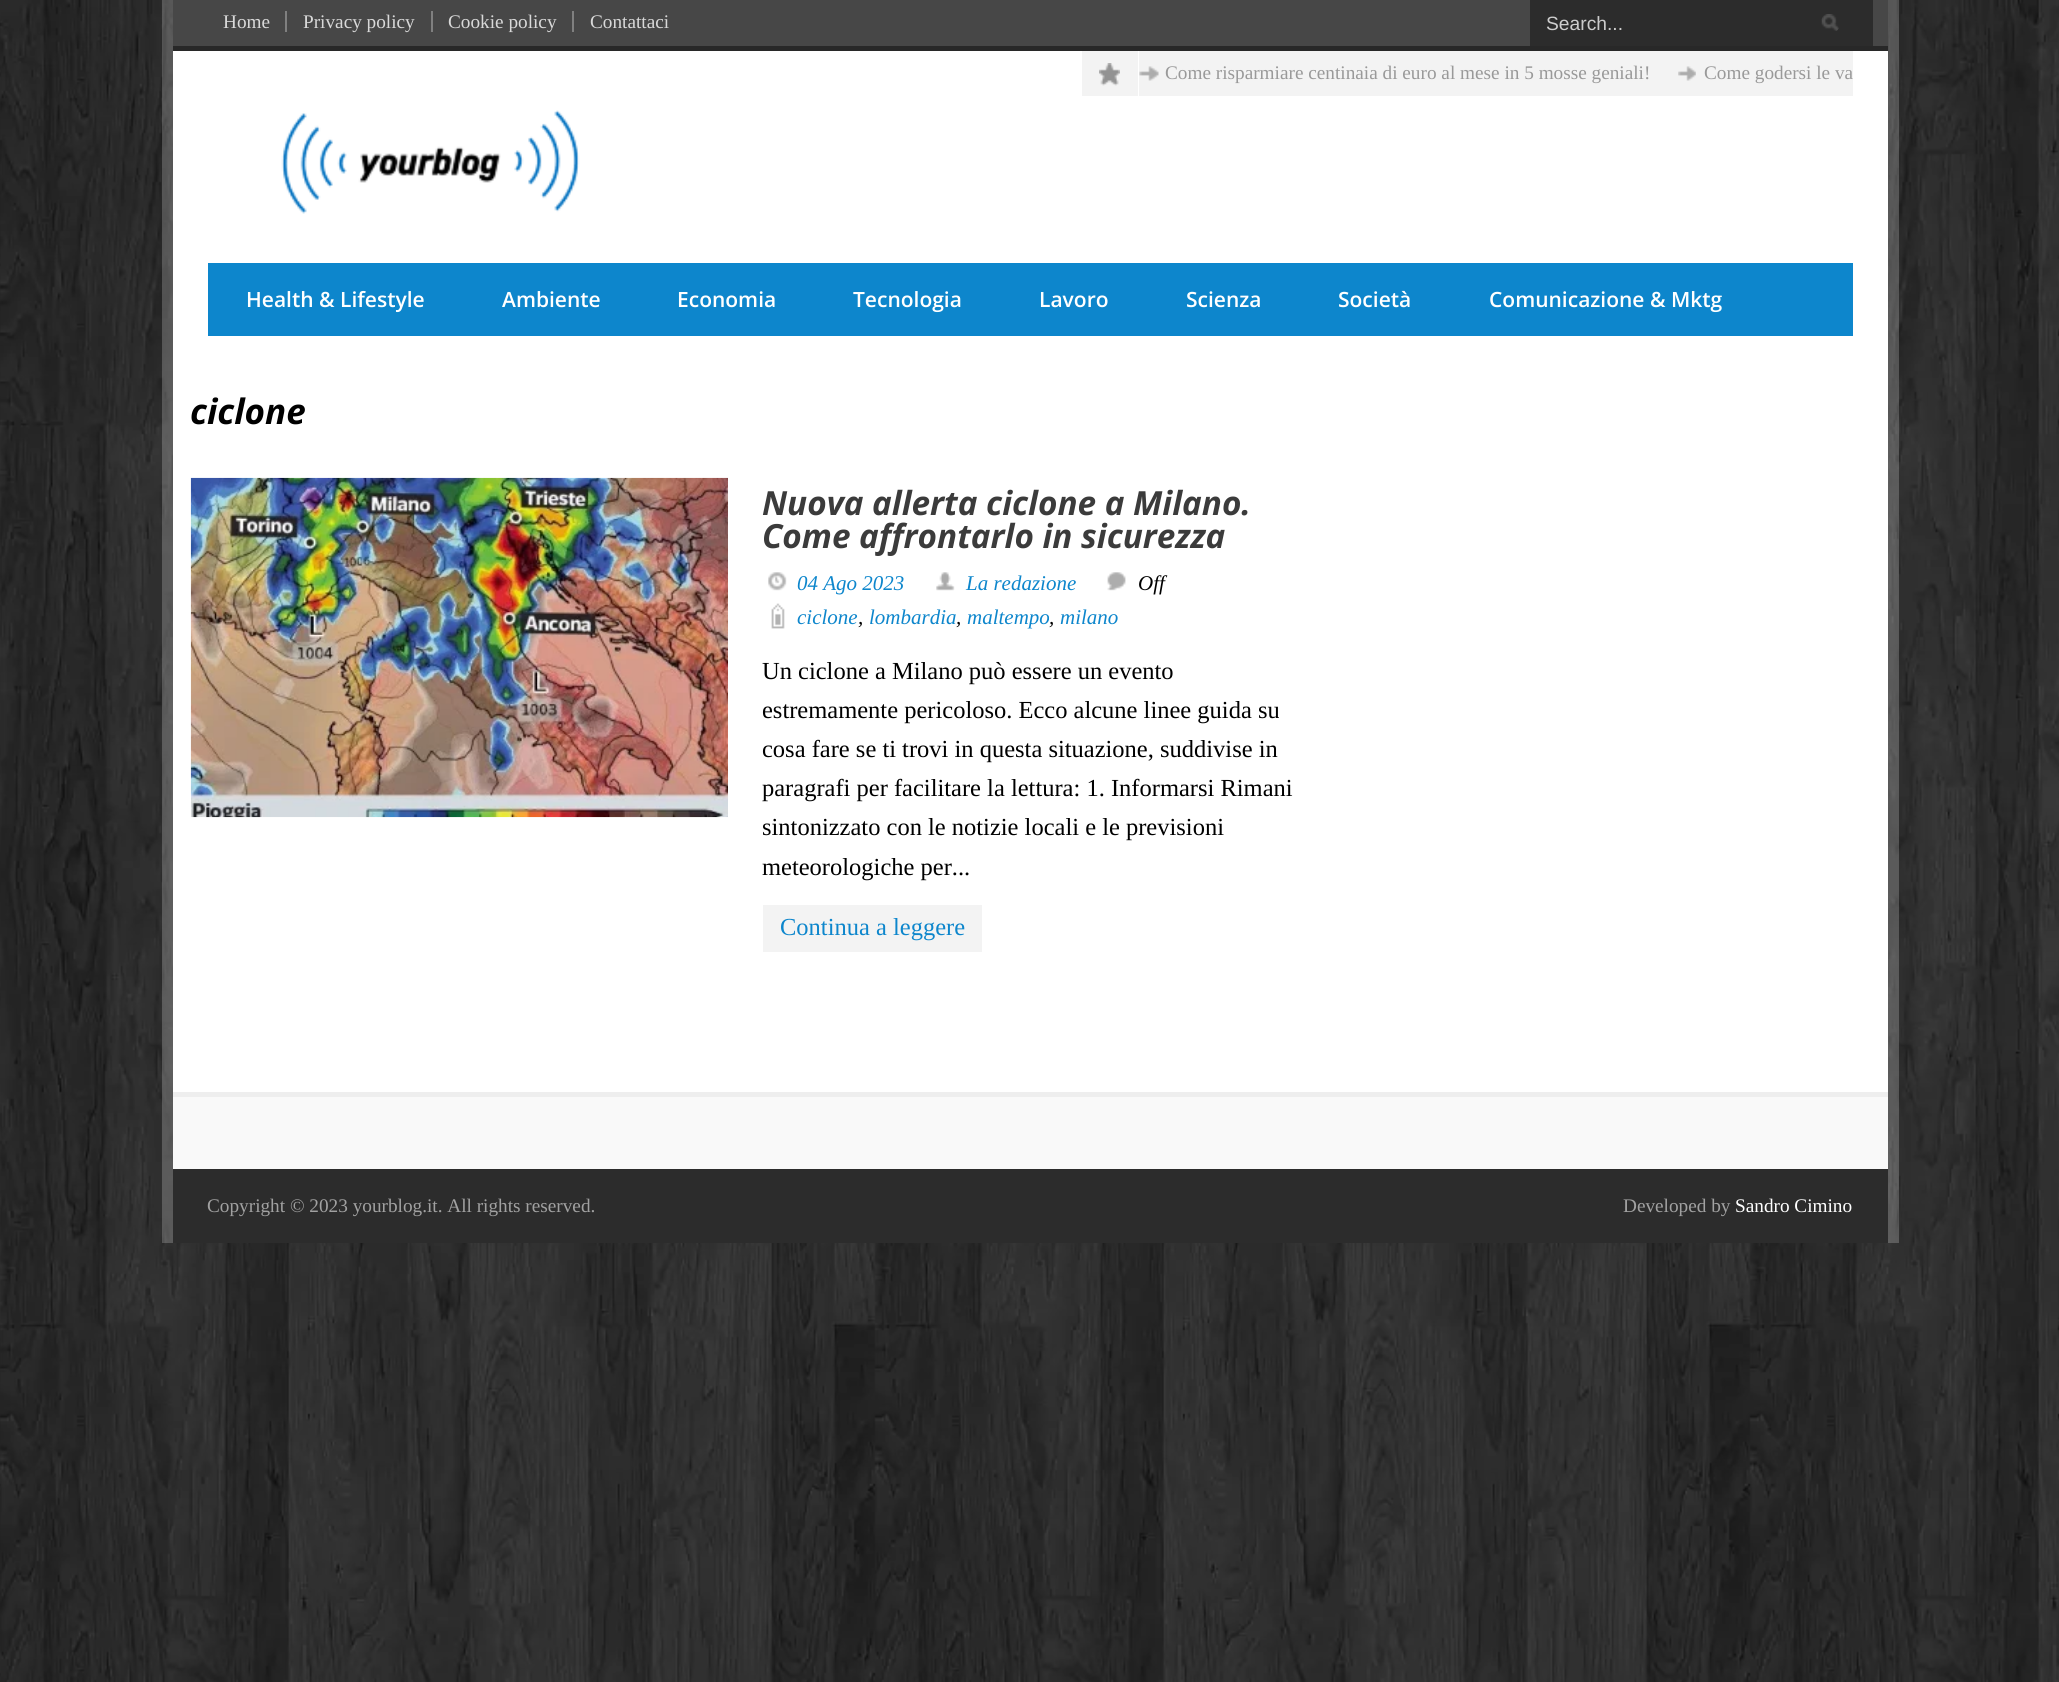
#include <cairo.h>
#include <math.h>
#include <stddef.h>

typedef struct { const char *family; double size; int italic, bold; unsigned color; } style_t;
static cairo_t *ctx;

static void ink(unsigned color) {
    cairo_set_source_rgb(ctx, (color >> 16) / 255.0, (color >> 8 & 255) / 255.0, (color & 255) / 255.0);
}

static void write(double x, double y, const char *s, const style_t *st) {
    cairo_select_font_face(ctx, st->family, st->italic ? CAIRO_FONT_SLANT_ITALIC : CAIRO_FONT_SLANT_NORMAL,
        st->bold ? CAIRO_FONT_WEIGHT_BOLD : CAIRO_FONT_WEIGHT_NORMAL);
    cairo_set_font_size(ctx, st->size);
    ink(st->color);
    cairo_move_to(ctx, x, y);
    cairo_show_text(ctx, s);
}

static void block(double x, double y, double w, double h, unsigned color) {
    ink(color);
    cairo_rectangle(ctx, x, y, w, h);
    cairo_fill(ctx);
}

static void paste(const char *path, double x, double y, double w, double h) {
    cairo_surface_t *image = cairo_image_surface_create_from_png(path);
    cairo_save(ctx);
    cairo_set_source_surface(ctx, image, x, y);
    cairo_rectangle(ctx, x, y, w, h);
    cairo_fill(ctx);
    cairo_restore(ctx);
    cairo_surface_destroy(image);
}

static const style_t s1 = {"Liberation Serif", 19.25, 0, 0, 0xd9d9d9};
static const style_t s2 = {"Liberation Sans", 19.25, 0, 0, 0xcccccc};
static const style_t s3 = {"Liberation Serif", 19.25, 0, 0, 0x999999};
static const style_t s4 = {"Open Sans SemiBold", 21, 0, 0, 0xffffff};
static const style_t s5 = {"Open Sans", 35, 1, 1, 0x000000};
static const style_t s6 = {"Open Sans", 33.25, 1, 1, 0x3b3b3b};
static const style_t s7 = {"Liberation Serif", 21, 1, 0, 0x0d86cc};
static const style_t s8 = {"Liberation Serif", 21, 1, 0, 0x000000};
static const style_t s9 = {"Liberation Serif", 24.5, 0, 0, 0x000000};
static const style_t s10 = {"Liberation Serif", 24.5, 0, 0, 0x0d86cc};
static const style_t s11 = {"Liberation Serif", 19.25, 0, 0, 0xa1a1a1};
static const style_t s12 = {"Liberation Serif", 19.25, 0, 0, 0xffffff};

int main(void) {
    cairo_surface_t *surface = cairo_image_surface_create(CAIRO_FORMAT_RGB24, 2059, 1682);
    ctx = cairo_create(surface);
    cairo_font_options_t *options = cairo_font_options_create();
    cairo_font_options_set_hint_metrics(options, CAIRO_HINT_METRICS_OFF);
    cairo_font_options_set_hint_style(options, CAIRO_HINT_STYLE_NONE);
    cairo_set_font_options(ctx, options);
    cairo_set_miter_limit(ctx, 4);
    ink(0xffffff);
    cairo_paint(ctx);
    paste("pic1.png", 0, 0, 2059, 1682);
    cairo_set_source_rgba(ctx, 1, 1, 1, 0.21);
    cairo_rectangle(ctx, 162, 0, 1737, 1243);
    cairo_fill(ctx);
    block(173, 0, 1715, 46, 0x474747);
    write(223, 28, "Home", &s1);
    block(285, 11, 2, 21, 0x808080);
    write(303, 28, "Privacy policy", &s1);
    block(431, 11, 2, 21, 0x808080);
    write(448, 28, "Cookie policy", &s1);
    block(572, 11, 2, 21, 0x808080);
    write(590, 28, "Contattaci", &s1);
    block(1530, 0, 343, 46, 0x2c2c2c);
    write(1546, 30, "Search...", &s2);
    paste("pic2.png", 1821, 14, 18, 17);
    block(173, 46, 1715, 5, 0x282828);
    block(173, 51, 1715, 1041, 0xffffff);
    block(1082, 51, 56, 45, 0xf3f3f3);
    paste("pic3.png", 1099, 63, 21, 23);
    block(1139, 51, 714, 45, 0xf3f3f3);
    paste("pic4.png", 1139, 66, 20, 15);
    write(1165, 79, "Come risparmiare centinaia di euro al mese in 5 mosse geniali!", &s3);
    paste("pic5.png", 1678, 66, 18, 15);
    write(1704, 79, "Come godersi le va", &s3);
    paste("pic6.png", 281, 110, 299, 104);
    block(208, 263, 1645, 73, 0x0d86cc);
    write(246, 307, "Health & Lifestyle", &s4);
    write(502, 307, "Ambiente", &s4);
    write(677, 307, "Economia", &s4);
    write(853, 307, "Tecnologia", &s4);
    write(1039, 307, "Lavoro", &s4);
    write(1186, 307, "Scienza", &s4);
    write(1338, 307, "Società", &s4);
    write(1489, 307, "Comunicazione & Mktg", &s4);
    write(190, 424, "ciclone", &s5);
    paste("pic7.png", 190, 477, 538, 341);
    write(762, 515, "Nuova allerta ciclone a Milano.", &s6);
    write(762, 548, "Come affrontarlo in sicurezza", &s6);
    paste("pic8.png", 768, 572, 19, 19);
    write(797, 590, "04 Ago 2023", &s7);
    paste("pic9.png", 936, 572, 19, 19);
    write(966, 590, "La redazione", &s7);
    paste("pic10.png", 1107, 572, 19, 19);
    write(1138, 590, "Off", &s8);
    paste("pic11.png", 771, 603, 14, 26);
    write(797, 624, "ciclone", &s7);
    write(858, 624, ",", &s8);
    write(869, 624, "lombardia", &s7);
    write(956, 624, ",", &s8);
    write(967, 624, "maltempo", &s7);
    write(1049, 624, ",", &s8);
    write(1060, 624, "milano", &s7);
    write(762, 679, "Un ciclone a Milano può essere un evento", &s9);
    write(762, 718, "estremamente pericoloso. Ecco alcune linee guida su", &s9);
    write(762, 757, "cosa fare se ti trovi in questa situazione, suddivise in", &s9);
    write(762, 796, "paragrafi per facilitare la lettura: 1. Informarsi Rimani", &s9);
    write(762, 835, "sintonizzato con le notizie locali e le previsioni", &s9);
    write(762, 875, "meteorologiche per...", &s9);
    block(763, 905, 219, 47, 0xf3f3f3);
    write(780, 935, "Continua a leggere", &s10);
    block(173, 1092, 1715, 5, 0xeeeeee);
    block(173, 1097, 1715, 72, 0xf9f9f9);
    block(173, 1169, 1715, 74, 0x2c2c2c);
    write(207, 1212, "Copyright © 2023 yourblog.it. All rights reserved.", &s11);
    write(1623, 1212, "Developed by", &s11);
    write(1735, 1212, "Sandro Cimino", &s12);
    cairo_surface_write_to_png(surface, "screenshot.png");
    cairo_font_options_destroy(options);
    cairo_destroy(ctx);
    cairo_surface_destroy(surface);
    return 0;
}
